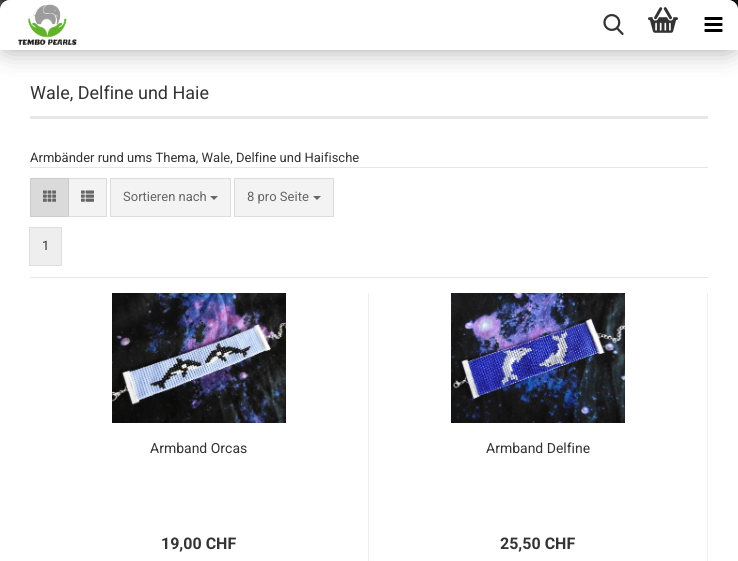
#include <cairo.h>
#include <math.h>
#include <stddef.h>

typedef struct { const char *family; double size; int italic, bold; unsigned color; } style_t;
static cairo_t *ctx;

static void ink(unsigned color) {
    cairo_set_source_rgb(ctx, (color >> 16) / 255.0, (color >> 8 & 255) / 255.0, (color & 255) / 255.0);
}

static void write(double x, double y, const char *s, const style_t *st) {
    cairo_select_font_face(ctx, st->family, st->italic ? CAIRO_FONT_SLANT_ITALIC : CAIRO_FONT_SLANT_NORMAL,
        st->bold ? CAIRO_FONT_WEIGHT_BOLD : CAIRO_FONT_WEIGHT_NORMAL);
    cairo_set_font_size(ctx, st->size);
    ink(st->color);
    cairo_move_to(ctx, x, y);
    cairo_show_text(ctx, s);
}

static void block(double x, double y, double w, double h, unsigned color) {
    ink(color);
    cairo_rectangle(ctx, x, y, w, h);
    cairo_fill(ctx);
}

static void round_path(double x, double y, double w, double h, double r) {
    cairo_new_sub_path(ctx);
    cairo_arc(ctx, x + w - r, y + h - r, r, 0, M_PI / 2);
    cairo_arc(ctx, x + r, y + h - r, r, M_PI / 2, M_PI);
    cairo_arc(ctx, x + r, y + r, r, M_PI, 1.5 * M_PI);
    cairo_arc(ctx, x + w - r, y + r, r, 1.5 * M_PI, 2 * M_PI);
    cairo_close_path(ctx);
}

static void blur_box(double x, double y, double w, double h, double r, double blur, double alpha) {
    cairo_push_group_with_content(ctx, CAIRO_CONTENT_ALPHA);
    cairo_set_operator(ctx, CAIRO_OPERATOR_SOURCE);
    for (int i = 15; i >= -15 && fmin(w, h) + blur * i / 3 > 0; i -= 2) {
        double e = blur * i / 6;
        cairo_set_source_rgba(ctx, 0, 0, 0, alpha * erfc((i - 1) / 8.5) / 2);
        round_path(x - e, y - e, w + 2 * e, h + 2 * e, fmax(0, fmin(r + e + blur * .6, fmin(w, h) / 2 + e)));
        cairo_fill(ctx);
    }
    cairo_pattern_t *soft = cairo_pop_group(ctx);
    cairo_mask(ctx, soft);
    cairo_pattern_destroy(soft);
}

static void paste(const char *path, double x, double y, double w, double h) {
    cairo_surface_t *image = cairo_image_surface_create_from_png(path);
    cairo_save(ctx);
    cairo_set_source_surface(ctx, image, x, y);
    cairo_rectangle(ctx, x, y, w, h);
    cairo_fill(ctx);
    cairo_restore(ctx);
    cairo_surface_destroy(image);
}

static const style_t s1 = {"Roboto", 18, 0, 0, 0x333333};
static const style_t s2 = {"Roboto", 13, 0, 0, 0x333333};
static const style_t s3 = {"Roboto", 13, 0, 0, 0x666666};
static const style_t s4 = {"Roboto", 14, 0, 0, 0x333333};
static const style_t s5 = {"Roboto", 16, 0, 1, 0x333333};

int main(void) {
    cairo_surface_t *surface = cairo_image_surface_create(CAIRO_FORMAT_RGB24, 738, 561);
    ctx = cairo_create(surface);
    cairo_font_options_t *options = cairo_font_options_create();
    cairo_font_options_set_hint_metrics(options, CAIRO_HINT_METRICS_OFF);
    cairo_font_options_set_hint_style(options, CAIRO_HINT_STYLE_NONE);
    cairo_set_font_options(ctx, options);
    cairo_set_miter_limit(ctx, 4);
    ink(0xffffff);
    cairo_paint(ctx);
    paste("pic1.png", 0, 0, 738, 10);
    ink(0xffffff);
    round_path(0, 0, 738, 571, 10);
    cairo_fill(ctx);
    ink(0x000000);
    blur_box(0, 0, 738, 50, 10, 12.5, 0.35);
    ink(0xffffff);
    cairo_new_path(ctx);
    cairo_move_to(ctx, 10, 0);
    cairo_line_to(ctx, 728, 0);
    cairo_curve_to(ctx, 733.5, 0, 738, 4.5, 738, 10);
    cairo_line_to(ctx, 738, 50);
    cairo_line_to(ctx, 0, 50);
    cairo_line_to(ctx, 0, 10);
    cairo_curve_to(ctx, 0, 4.5, 4.5, 0, 10, 0);
    cairo_close_path(ctx);
    cairo_fill(ctx);
    paste("pic2.png", 18, 4, 59, 41);
    paste("pic3.png", 603, 14, 21, 21);
    paste("pic4.png", 648, 7, 30, 26);
    paste("pic5.png", 704, 17, 19, 15);
    block(30, 116, 678, 3, 0xe7e7e7);
    write(30, 99, "Wale, Delfine und Haie", &s1);
    write(30, 162, "Armbänder rund ums Thema, Wale, Delfine und Haifische", &s2);
    block(30, 167, 678, 1, 0xe7e7e7);
    block(30, 277, 678, 1, 0xe7e7e7);
    ink(0xf3f3f3);
    cairo_rectangle(ctx, 68.5, 178.5, 38, 38);
    cairo_fill_preserve(ctx);
    ink(0xdddddd);
    cairo_set_line_width(ctx, 1);
    cairo_stroke(ctx);
    ink(0xdadada);
    cairo_rectangle(ctx, 30.5, 178.5, 38, 38);
    cairo_fill_preserve(ctx);
    ink(0xcccccc);
    cairo_stroke(ctx);
    paste("pic6.png", 43, 190, 13, 12);
    paste("pic7.png", 81, 190, 13, 12);
    ink(0xf3f3f3);
    cairo_rectangle(ctx, 110.5, 178.5, 120, 38);
    cairo_fill_preserve(ctx);
    ink(0xdddddd);
    cairo_stroke(ctx);
    write(123, 201, "Sortieren nach", &s3);
    cairo_new_path(ctx);
    cairo_move_to(ctx, 210, 196);
    cairo_line_to(ctx, 218, 196);
    cairo_line_to(ctx, 214, 200);
    cairo_close_path(ctx);
    cairo_fill(ctx);
    ink(0xf3f3f3);
    cairo_rectangle(ctx, 234.5, 178.5, 99, 38);
    cairo_fill_preserve(ctx);
    ink(0xdddddd);
    cairo_stroke(ctx);
    write(247, 201, "8 pro Seite", &s3);
    cairo_new_path(ctx);
    cairo_move_to(ctx, 313, 196);
    cairo_line_to(ctx, 321, 196);
    cairo_line_to(ctx, 317, 200);
    cairo_close_path(ctx);
    cairo_fill(ctx);
    ink(0xeeeeee);
    cairo_rectangle(ctx, 29.5, 227.5, 32, 38);
    cairo_fill_preserve(ctx);
    ink(0xdddddd);
    cairo_stroke(ctx);
    write(42, 250, "1", &s2);
    block(368, 293, 1, 268, 0xeeeeee);
    paste("pic8.png", 112, 293, 174, 130);
    write(150, 453, "Armband Orcas", &s4);
    write(161, 549, "19,00 CHF", &s5);
    block(707, 293, 1, 268, 0xeeeeee);
    paste("pic9.png", 451, 293, 174, 130);
    write(486, 453, "Armband Delfine", &s4);
    write(500, 549, "25,50 CHF", &s5);
    cairo_surface_write_to_png(surface, "screenshot.png");
    cairo_font_options_destroy(options);
    cairo_destroy(ctx);
    cairo_surface_destroy(surface);
    return 0;
}
